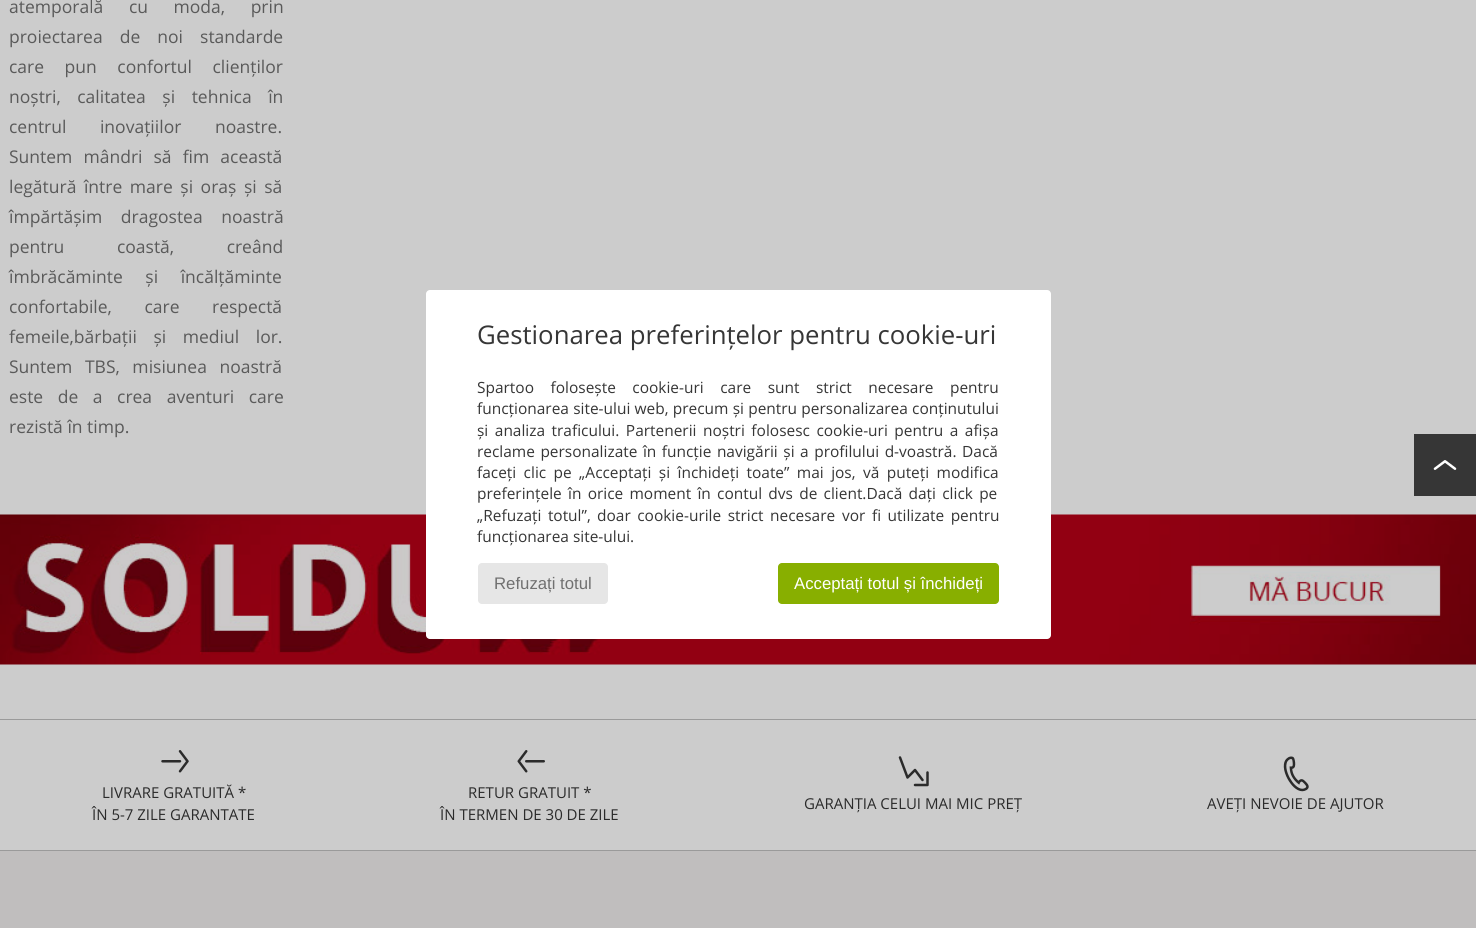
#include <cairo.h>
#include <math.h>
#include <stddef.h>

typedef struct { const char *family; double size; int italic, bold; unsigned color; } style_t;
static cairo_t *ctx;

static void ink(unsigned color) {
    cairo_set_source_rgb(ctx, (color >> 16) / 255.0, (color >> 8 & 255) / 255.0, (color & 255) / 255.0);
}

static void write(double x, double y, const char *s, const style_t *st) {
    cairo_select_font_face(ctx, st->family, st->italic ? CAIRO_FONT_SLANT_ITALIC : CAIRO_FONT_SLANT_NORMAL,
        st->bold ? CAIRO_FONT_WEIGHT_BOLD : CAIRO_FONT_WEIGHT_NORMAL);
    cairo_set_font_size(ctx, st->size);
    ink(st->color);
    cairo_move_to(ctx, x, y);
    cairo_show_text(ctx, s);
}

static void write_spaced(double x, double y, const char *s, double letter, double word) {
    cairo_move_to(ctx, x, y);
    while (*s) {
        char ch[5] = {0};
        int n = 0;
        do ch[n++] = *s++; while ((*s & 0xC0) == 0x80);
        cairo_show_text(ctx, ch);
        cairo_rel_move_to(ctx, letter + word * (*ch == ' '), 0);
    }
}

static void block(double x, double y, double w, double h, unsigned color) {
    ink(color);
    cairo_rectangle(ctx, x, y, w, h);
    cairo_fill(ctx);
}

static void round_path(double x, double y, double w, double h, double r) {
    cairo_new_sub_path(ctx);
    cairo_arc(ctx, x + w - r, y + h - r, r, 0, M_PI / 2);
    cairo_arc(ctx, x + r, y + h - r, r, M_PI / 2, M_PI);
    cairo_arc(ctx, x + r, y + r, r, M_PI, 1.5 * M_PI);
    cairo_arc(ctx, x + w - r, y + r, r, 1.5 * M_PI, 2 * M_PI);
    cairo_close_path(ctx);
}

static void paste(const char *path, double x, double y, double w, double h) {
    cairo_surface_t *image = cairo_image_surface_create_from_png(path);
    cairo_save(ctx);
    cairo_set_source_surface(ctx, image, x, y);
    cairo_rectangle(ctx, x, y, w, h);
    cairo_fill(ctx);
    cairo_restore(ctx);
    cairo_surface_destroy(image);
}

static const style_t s1 = {"Open Sans", 17.5, 0, 0, 0x5a5a5a};
static const style_t s2 = {"Open Sans", 25.75, 0, 0, 0x363636};
static const style_t s3 = {"Open Sans", 15.45, 0, 0, 0x363636};
static const style_t s4 = {"Liberation Sans", 16.75, 0, 0, 0x707070};
static const style_t s5 = {"Liberation Sans", 16.75, 0, 0, 0xffffff};
static const style_t s6 = {"Open Sans", 15, 0, 0, 0x2b2b2b};

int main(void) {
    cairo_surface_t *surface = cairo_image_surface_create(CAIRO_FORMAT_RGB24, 1476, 928);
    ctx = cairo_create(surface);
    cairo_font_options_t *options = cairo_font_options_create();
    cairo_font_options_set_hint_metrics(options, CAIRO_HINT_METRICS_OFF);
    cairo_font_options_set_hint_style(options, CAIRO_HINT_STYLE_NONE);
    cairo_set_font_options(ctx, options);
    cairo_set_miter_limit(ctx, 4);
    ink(0xcccccc);
    cairo_paint(ctx);
    cairo_select_font_face(ctx, "Open Sans", CAIRO_FONT_SLANT_NORMAL, CAIRO_FONT_WEIGHT_NORMAL);
    cairo_set_font_size(ctx, 17.5);
    ink(0x5a5a5a);
    write_spaced(9, 13, "atemporală cu moda, prin", 0, 21);
    write_spaced(9, 43, "proiectarea de noi standarde", 0, 12.5);
    write_spaced(9, 73, "care pun confortul clienților", 0, 16);
    write_spaced(9, 103, "noștri, calitatea și tehnica în", 0, 12);
    write_spaced(9, 133, "centrul inovațiilor noastre.", 0, 29);
    write_spaced(9, 163, "Suntem mândri să fim această", 0, 6.5);
    write_spaced(9, 193, "legătură între mare și oraș și să", 0, 3);
    write_spaced(9, 223, "împărtășim dragostea noastră", 0, 14);
    write_spaced(9, 253, "pentru coastă, creând", 0, 48);
    write_spaced(9, 283, "îmbrăcăminte și încălțăminte", 0, 18);
    write_spaced(9, 313, "confortabile, care respectă", 0, 28);
    write_spaced(9, 343, "femeile,bărbații și mediul lor.", 0, 12);
    write_spaced(9, 373, "Suntem TBS, misiunea noastră", 0, 8);
    write_spaced(9, 403, "este de a crea aventuri care", 0, 10);
    write(9, 433, "rezistă în timp.", &s1);
    paste("pic2.png", 0, 514, 1476, 151);
    ink(0xffffff);
    round_path(426, 290, 625, 349, 4);
    cairo_fill(ctx);
    write(477, 344, "Gestionarea preferințelor pentru cookie-uri", &s2);
    cairo_set_font_size(ctx, 15.45);
    write_spaced(477, 393, "Spartoo folosește cookie-uri care sunt strict necesare pentru", 0, 12.5);
    write_spaced(477, 414, "funcționarea site-ului web, precum și pentru personalizarea conținutului", 0, 0.25);
    write_spaced(477, 436, "și analiza traficului. Partenerii noștri folosesc cookie-uri pentru a afișa", 0, 2.5);
    write_spaced(477, 457, "reclame personalizate în funcție navigării și a profilului d-voastră. Dacă", 0, 1.5);
    write_spaced(477, 478, "faceți clic pe „Acceptați și închideți toate” mai jos, vă puteți modifica", 0, 3.4);
    write_spaced(477, 499, "preferințele în orice moment în contul dvs de client.Dacă dați click pe", 0, 2.25);
    write_spaced(477, 521, "„Refuzați totul”,", 0, 2.5);
    write_spaced(597, 521, "doar cookie-urile strict necesare", 0, 2.5);
    write_spaced(842, 521, "vor fi utilizate pentru", 0, 2.5);
    write(477, 542, "funcționarea site-ului.", &s3);
    ink(0xe6e6e6);
    round_path(478, 563, 130, 41, 4);
    cairo_fill(ctx);
    write(494, 589, "Refuzați totul", &s4);
    ink(0x88af00);
    round_path(778, 563, 221, 41, 4);
    cairo_fill(ctx);
    write(794, 589, "Acceptați totul și închideți", &s5);
    block(1414, 434, 62, 62, 0x363636);
    paste("pic1.png", 1433, 460, 24, 10);
    block(0, 851, 1476, 77, 0xc0bebe);
    block(0, 719, 1476, 1, 0x9a9a9a);
    block(0, 850, 1476, 1, 0x9a9a9a);
    paste("pic3.png", 161, 750, 28, 23);
    write(102, 798, "LIVRARE GRATUITĂ *", &s6);
    write(92, 820, "ÎN 5-7 ZILE GARANTATE", &s6);
    paste("pic4.png", 517, 750, 28, 23);
    write(468, 798, "RETUR GRATUIT *", &s6);
    write(440, 820, "ÎN TERMEN DE 30 DE ZILE", &s6);
    paste("pic5.png", 898, 756, 31, 31);
    write(804, 809, "GARANȚIA CELUI MAI MIC PREȚ", &s6);
    paste("pic6.png", 1283, 756, 26, 36);
    write(1207, 809, "AVEȚI NEVOIE DE AJUTOR", &s6);
    cairo_surface_write_to_png(surface, "screenshot.png");
    cairo_font_options_destroy(options);
    cairo_destroy(ctx);
    cairo_surface_destroy(surface);
    return 0;
}
